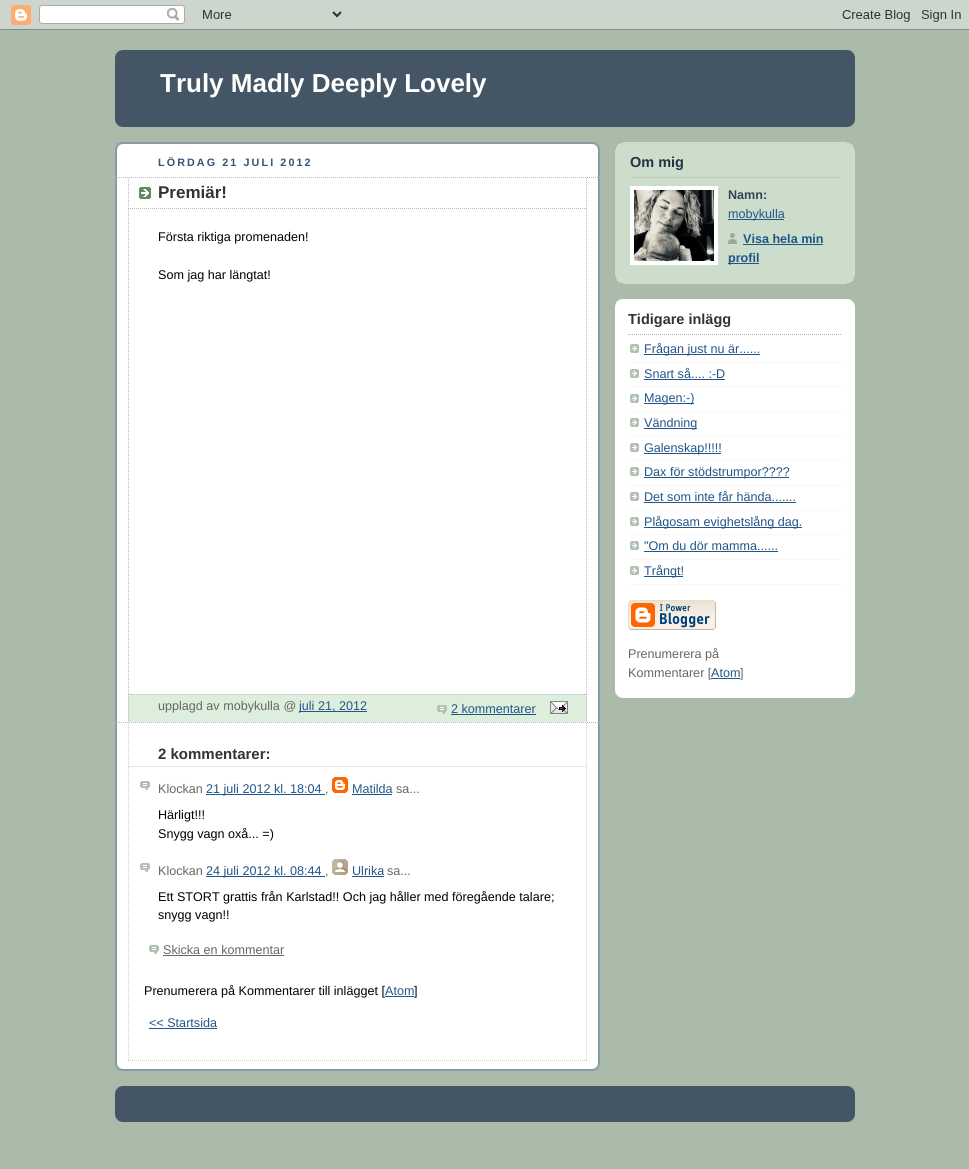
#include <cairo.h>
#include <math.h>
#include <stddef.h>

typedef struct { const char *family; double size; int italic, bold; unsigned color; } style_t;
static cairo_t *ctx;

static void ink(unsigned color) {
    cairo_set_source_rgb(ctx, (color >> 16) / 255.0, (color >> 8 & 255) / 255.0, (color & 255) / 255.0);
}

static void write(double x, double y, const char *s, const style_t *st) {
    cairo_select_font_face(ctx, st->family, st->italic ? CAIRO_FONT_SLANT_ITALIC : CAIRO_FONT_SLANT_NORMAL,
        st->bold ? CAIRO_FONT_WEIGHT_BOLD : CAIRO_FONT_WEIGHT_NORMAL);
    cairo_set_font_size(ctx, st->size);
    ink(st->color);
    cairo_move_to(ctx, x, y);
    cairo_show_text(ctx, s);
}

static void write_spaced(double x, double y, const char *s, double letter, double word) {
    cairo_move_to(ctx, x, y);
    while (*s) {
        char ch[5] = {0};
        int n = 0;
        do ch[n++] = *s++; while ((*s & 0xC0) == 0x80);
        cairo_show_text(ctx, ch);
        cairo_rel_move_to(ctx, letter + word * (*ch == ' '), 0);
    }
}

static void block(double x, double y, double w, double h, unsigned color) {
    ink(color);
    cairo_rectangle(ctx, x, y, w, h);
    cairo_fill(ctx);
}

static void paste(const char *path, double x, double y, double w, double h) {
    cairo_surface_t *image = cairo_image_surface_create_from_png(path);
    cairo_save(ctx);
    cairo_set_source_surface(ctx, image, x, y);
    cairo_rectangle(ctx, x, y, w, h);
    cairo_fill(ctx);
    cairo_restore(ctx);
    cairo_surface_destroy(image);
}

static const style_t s1 = {"Liberation Sans", 26, 0, 1, 0xffffff};
static const style_t s2 = {"Liberation Sans", 17, 0, 1, 0x333333};
static const style_t s3 = {"Liberation Sans", 12.6, 0, 0, 0x000000};
static const style_t s4 = {"Liberation Sans", 12.6, 0, 0, 0x666666};
static const style_t s5 = {"Liberation Sans", 12.6, 0, 0, 0x225588};
static const style_t s6 = {"Liberation Sans", 15, 0, 1, 0x333333};
static const style_t s7 = {"Liberation Sans", 14.5, 0, 1, 0x223344};
static const style_t s8 = {"Liberation Sans", 12.6, 0, 1, 0x334455};
static const style_t s9 = {"Liberation Sans", 12.6, 0, 1, 0x225588};
static const style_t s10 = {"Liberation Sans", 14.5, 0, 1, 0x333333};

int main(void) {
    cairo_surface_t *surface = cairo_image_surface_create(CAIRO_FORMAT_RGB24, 969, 1169);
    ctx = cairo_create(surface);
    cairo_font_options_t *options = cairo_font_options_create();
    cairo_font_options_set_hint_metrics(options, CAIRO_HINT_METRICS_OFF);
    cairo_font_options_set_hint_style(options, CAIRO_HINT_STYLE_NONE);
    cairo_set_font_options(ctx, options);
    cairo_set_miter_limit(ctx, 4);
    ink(0xaabbaa);
    cairo_paint(ctx);
    paste("pic1.png", 0, 0, 969, 30);
    block(115, 50, 740, 77, 0x445566);
    paste("pic2.png", 115, 50, 740, 8);
    paste("pic3.png", 115, 119, 740, 8);
    write(160, 92, "Truly Madly Deeply Lovely", &s1);
    block(117, 144, 481, 925, 0xffffff);
    paste("pic4.png", 115, 1021, 485, 50);
    paste("pic5.png", 115, 142, 485, 50);
    paste("pic6.png", 115, 192, 485, 829);
    cairo_set_font_size(ctx, 10.75);
    ink(0x335577);
    write_spaced(158, 166, "LÖRDAG 21 JULI 2012", 2.1, 0);
    cairo_new_path(ctx);
    cairo_move_to(ctx, 115, 177.5);
    cairo_line_to(ctx, 600, 177.5);
    ink(0xbbbbbb);
    cairo_set_line_width(ctx, 1);
    cairo_set_dash(ctx, (double[]){1, 1}, 2, 0);
    cairo_stroke(ctx);
    cairo_new_path(ctx);
    cairo_move_to(ctx, 115, 722.5);
    cairo_line_to(ctx, 600, 722.5);
    cairo_stroke(ctx);
    paste("pic7.png", 139, 187, 12, 12);
    cairo_new_path(ctx);
    cairo_move_to(ctx, 586.5, 178);
    cairo_line_to(ctx, 586.5, 209);
    cairo_stroke(ctx);
    cairo_new_path(ctx);
    cairo_move_to(ctx, 128, 208.5);
    cairo_line_to(ctx, 587, 208.5);
    cairo_stroke(ctx);
    cairo_new_path(ctx);
    cairo_move_to(ctx, 128.5, 178);
    cairo_line_to(ctx, 128.5, 209);
    cairo_stroke(ctx);
    write(158, 198, "Premiär!", &s2);
    cairo_new_path(ctx);
    cairo_move_to(ctx, 586.5, 209);
    cairo_line_to(ctx, 586.5, 694);
    ink(0xbbbbbb);
    cairo_stroke(ctx);
    cairo_new_path(ctx);
    cairo_move_to(ctx, 128.5, 209);
    cairo_line_to(ctx, 128.5, 694);
    cairo_stroke(ctx);
    write(158, 241, "Första riktiga promenaden!", &s3);
    write(158, 279, "Som jag har längtat!", &s3);
    block(128, 694, 459, 28, 0xddeedd);
    cairo_new_path(ctx);
    cairo_move_to(ctx, 128, 694.5);
    cairo_line_to(ctx, 587, 694.5);
    ink(0xbbbbbb);
    cairo_stroke(ctx);
    cairo_new_path(ctx);
    cairo_move_to(ctx, 586.5, 694);
    cairo_line_to(ctx, 586.5, 722);
    cairo_stroke(ctx);
    cairo_new_path(ctx);
    cairo_move_to(ctx, 128.5, 694);
    cairo_line_to(ctx, 128.5, 722);
    cairo_stroke(ctx);
    write(158, 710, "upplagd av mobykulla @", &s4);
    block(299, 711, 68, 1, 0x225588);
    write(299, 710, "juli 21, 2012", &s5);
    paste("pic8.png", 437, 705, 10, 9);
    write(451, 713, "2 kommentarer", &s5);
    block(451, 714, 85, 1, 0x225588);
    paste("pic9.png", 550, 701, 18, 13);
    cairo_new_path(ctx);
    cairo_move_to(ctx, 586.5, 723);
    cairo_line_to(ctx, 586.5, 1061);
    ink(0xcccccc);
    cairo_stroke(ctx);
    cairo_new_path(ctx);
    cairo_move_to(ctx, 128, 1060.5);
    cairo_line_to(ctx, 587, 1060.5);
    cairo_stroke(ctx);
    cairo_new_path(ctx);
    cairo_move_to(ctx, 128.5, 723);
    cairo_line_to(ctx, 128.5, 1061);
    cairo_stroke(ctx);
    cairo_new_path(ctx);
    cairo_move_to(ctx, 129, 766.5);
    cairo_line_to(ctx, 586, 766.5);
    cairo_stroke(ctx);
    write(158, 759, "2 kommentarer:", &s6);
    paste("pic10.png", 140, 781, 10, 9);
    write(158, 793, "Klockan", &s4);
    block(206, 794, 119, 1, 0x225588);
    write(206, 793, "21 juli 2012 kl. 18:04", &s5);
    write(325, 793, ",", &s4);
    paste("pic11.png", 332, 777, 16, 16);
    write(352, 793, "Matilda", &s5);
    block(352, 794, 40, 1, 0x225588);
    write(396, 793, "sa...", &s4);
    write(158, 819, "Härligt!!!", &s3);
    write(158, 838, "Snygg vagn oxå... =)", &s3);
    paste("pic10.png", 140, 863, 10, 9);
    write(158, 875, "Klockan", &s4);
    block(206, 876, 119, 1, 0x225588);
    write(206, 875, "24 juli 2012 kl. 08:44", &s5);
    write(325, 875, ",", &s4);
    paste("pic12.png", 332, 859, 16, 16);
    write(352, 875, "Ulrika", &s5);
    block(352, 876, 32, 1, 0x225588);
    write(387, 875, "sa...", &s4);
    write(158, 901, "Ett STORT grattis från Karlstad!! Och jag håller med föregående talare;", &s3);
    write(158, 919, "snygg vagn!!", &s3);
    paste("pic10.png", 149, 945, 10, 9);
    write(163, 954, "Skicka en kommentar", &s4);
    block(163, 955, 121, 1, 0x666666);
    write(144, 995, "Prenumerera på Kommentarer till inlägget [", &s3);
    write(385, 995, "Atom", &s5);
    block(385, 996, 29, 1, 0x225588);
    write(414, 995, "]", &s3);
    write(149, 1027, "<< Startsida", &s5);
    block(149, 1028, 68, 1, 0x225588);
    block(615, 142, 240, 142, 0xccddcc);
    paste("pic13.png", 615, 276, 240, 8);
    paste("pic14.png", 615, 142, 240, 8);
    write(630, 167, "Om mig", &s7);
    cairo_new_path(ctx);
    cairo_move_to(ctx, 630, 177.5);
    cairo_line_to(ctx, 840, 177.5);
    ink(0xaabbaa);
    cairo_stroke(ctx);
    cairo_rectangle(ctx, 632, 188, 84, 75);
    ink(0xffffff);
    cairo_set_line_width(ctx, 4);
    cairo_set_dash(ctx, NULL, 0, 0);
    cairo_stroke(ctx);
    paste("pic15.png", 634, 190, 80, 71);
    write(728, 199, "Namn:", &s8);
    block(728, 219, 56, 1, 0x225588);
    write(728, 218, "mobykulla", &s5);
    paste("pic16.png", 728, 233, 9, 11);
    write(743, 243, "Visa hela min", &s9);
    block(743, 244, 80, 1, 0x225588);
    block(728, 263, 31, 1, 0x225588);
    write(728, 262, "profil", &s9);
    block(615, 299, 240, 399, 0xffffff);
    paste("pic17.png", 615, 299, 240, 8);
    paste("pic18.png", 615, 690, 240, 8);
    cairo_new_path(ctx);
    cairo_move_to(ctx, 628, 334.5);
    cairo_line_to(ctx, 842, 334.5);
    ink(0x99bb99);
    cairo_set_line_width(ctx, 1);
    cairo_set_dash(ctx, (double[]){1, 1}, 2, 0);
    cairo_stroke(ctx);
    write(628, 324, "Tidigare inlägg", &s10);
    paste("pic19.png", 630, 344, 9, 9);
    cairo_new_path(ctx);
    cairo_move_to(ctx, 628, 362.5);
    cairo_line_to(ctx, 842, 362.5);
    ink(0xeeeeee);
    cairo_stroke(ctx);
    block(644, 354, 116, 1, 0x225588);
    write(644, 353, "Frågan just nu är......", &s5);
    paste("pic19.png", 630, 369, 9, 9);
    cairo_new_path(ctx);
    cairo_move_to(ctx, 628, 386.5);
    cairo_line_to(ctx, 842, 386.5);
    ink(0xeeeeee);
    cairo_stroke(ctx);
    write(644, 378, "Snart så.... :-D", &s5);
    block(644, 379, 81, 1, 0x225588);
    paste("pic19.png", 630, 394, 9, 9);
    cairo_new_path(ctx);
    cairo_move_to(ctx, 628, 411.5);
    cairo_line_to(ctx, 842, 411.5);
    ink(0xeeeeee);
    cairo_stroke(ctx);
    block(644, 403, 50, 1, 0x225588);
    write(644, 402, "Magen:-)", &s5);
    paste("pic19.png", 630, 418, 9, 9);
    cairo_new_path(ctx);
    cairo_move_to(ctx, 628, 436.5);
    cairo_line_to(ctx, 842, 436.5);
    ink(0xeeeeee);
    cairo_stroke(ctx);
    block(644, 428, 53, 1, 0x225588);
    write(644, 427, "Vändning", &s5);
    paste("pic19.png", 630, 443, 9, 9);
    cairo_new_path(ctx);
    cairo_move_to(ctx, 628, 460.5);
    cairo_line_to(ctx, 842, 460.5);
    ink(0xeeeeee);
    cairo_stroke(ctx);
    block(644, 453, 77, 1, 0x225588);
    write(644, 452, "Galenskap!!!!!", &s5);
    paste("pic19.png", 630, 467, 9, 9);
    cairo_new_path(ctx);
    cairo_move_to(ctx, 628, 485.5);
    cairo_line_to(ctx, 842, 485.5);
    ink(0xeeeeee);
    cairo_stroke(ctx);
    block(644, 477, 145, 1, 0x225588);
    write(644, 476, "Dax för stödstrumpor?\077?\077", &s5);
    paste("pic19.png", 630, 492, 9, 9);
    cairo_new_path(ctx);
    cairo_move_to(ctx, 628, 510.5);
    cairo_line_to(ctx, 842, 510.5);
    ink(0xeeeeee);
    cairo_stroke(ctx);
    write(644, 501, "Det som inte får hända.......", &s5);
    block(644, 502, 152, 1, 0x225588);
    paste("pic19.png", 630, 517, 9, 9);
    cairo_new_path(ctx);
    cairo_move_to(ctx, 628, 534.5);
    cairo_line_to(ctx, 842, 534.5);
    ink(0xeeeeee);
    cairo_stroke(ctx);
    block(644, 527, 158, 1, 0x225588);
    write(644, 526, "Plågosam evighetslång dag.", &s5);
    paste("pic19.png", 630, 541, 9, 9);
    cairo_new_path(ctx);
    cairo_move_to(ctx, 628, 559.5);
    cairo_line_to(ctx, 842, 559.5);
    ink(0xeeeeee);
    cairo_stroke(ctx);
    write(644, 550, "\"Om du dör mamma......", &s5);
    block(644, 551, 134, 1, 0x225588);
    paste("pic19.png", 630, 566, 9, 9);
    cairo_new_path(ctx);
    cairo_move_to(ctx, 628, 584.5);
    cairo_line_to(ctx, 842, 584.5);
    ink(0xeeeeee);
    cairo_stroke(ctx);
    block(644, 576, 39, 1, 0x225588);
    write(644, 575, "Trångt!", &s5);
    paste("pic20.png", 628, 600, 88, 30);
    write(628, 658, "Prenumerera på", &s4);
    write(628, 677, "Kommentarer [", &s4);
    write(711, 677, "Atom", &s5);
    block(711, 678, 29, 1, 0x225588);
    write(740, 677, "]", &s4);
    block(115, 1086, 740, 36, 0x445566);
    paste("pic2.png", 115, 1086, 740, 8);
    paste("pic3.png", 115, 1114, 740, 8);
    cairo_surface_write_to_png(surface, "screenshot.png");
    cairo_font_options_destroy(options);
    cairo_destroy(ctx);
    cairo_surface_destroy(surface);
    return 0;
}
